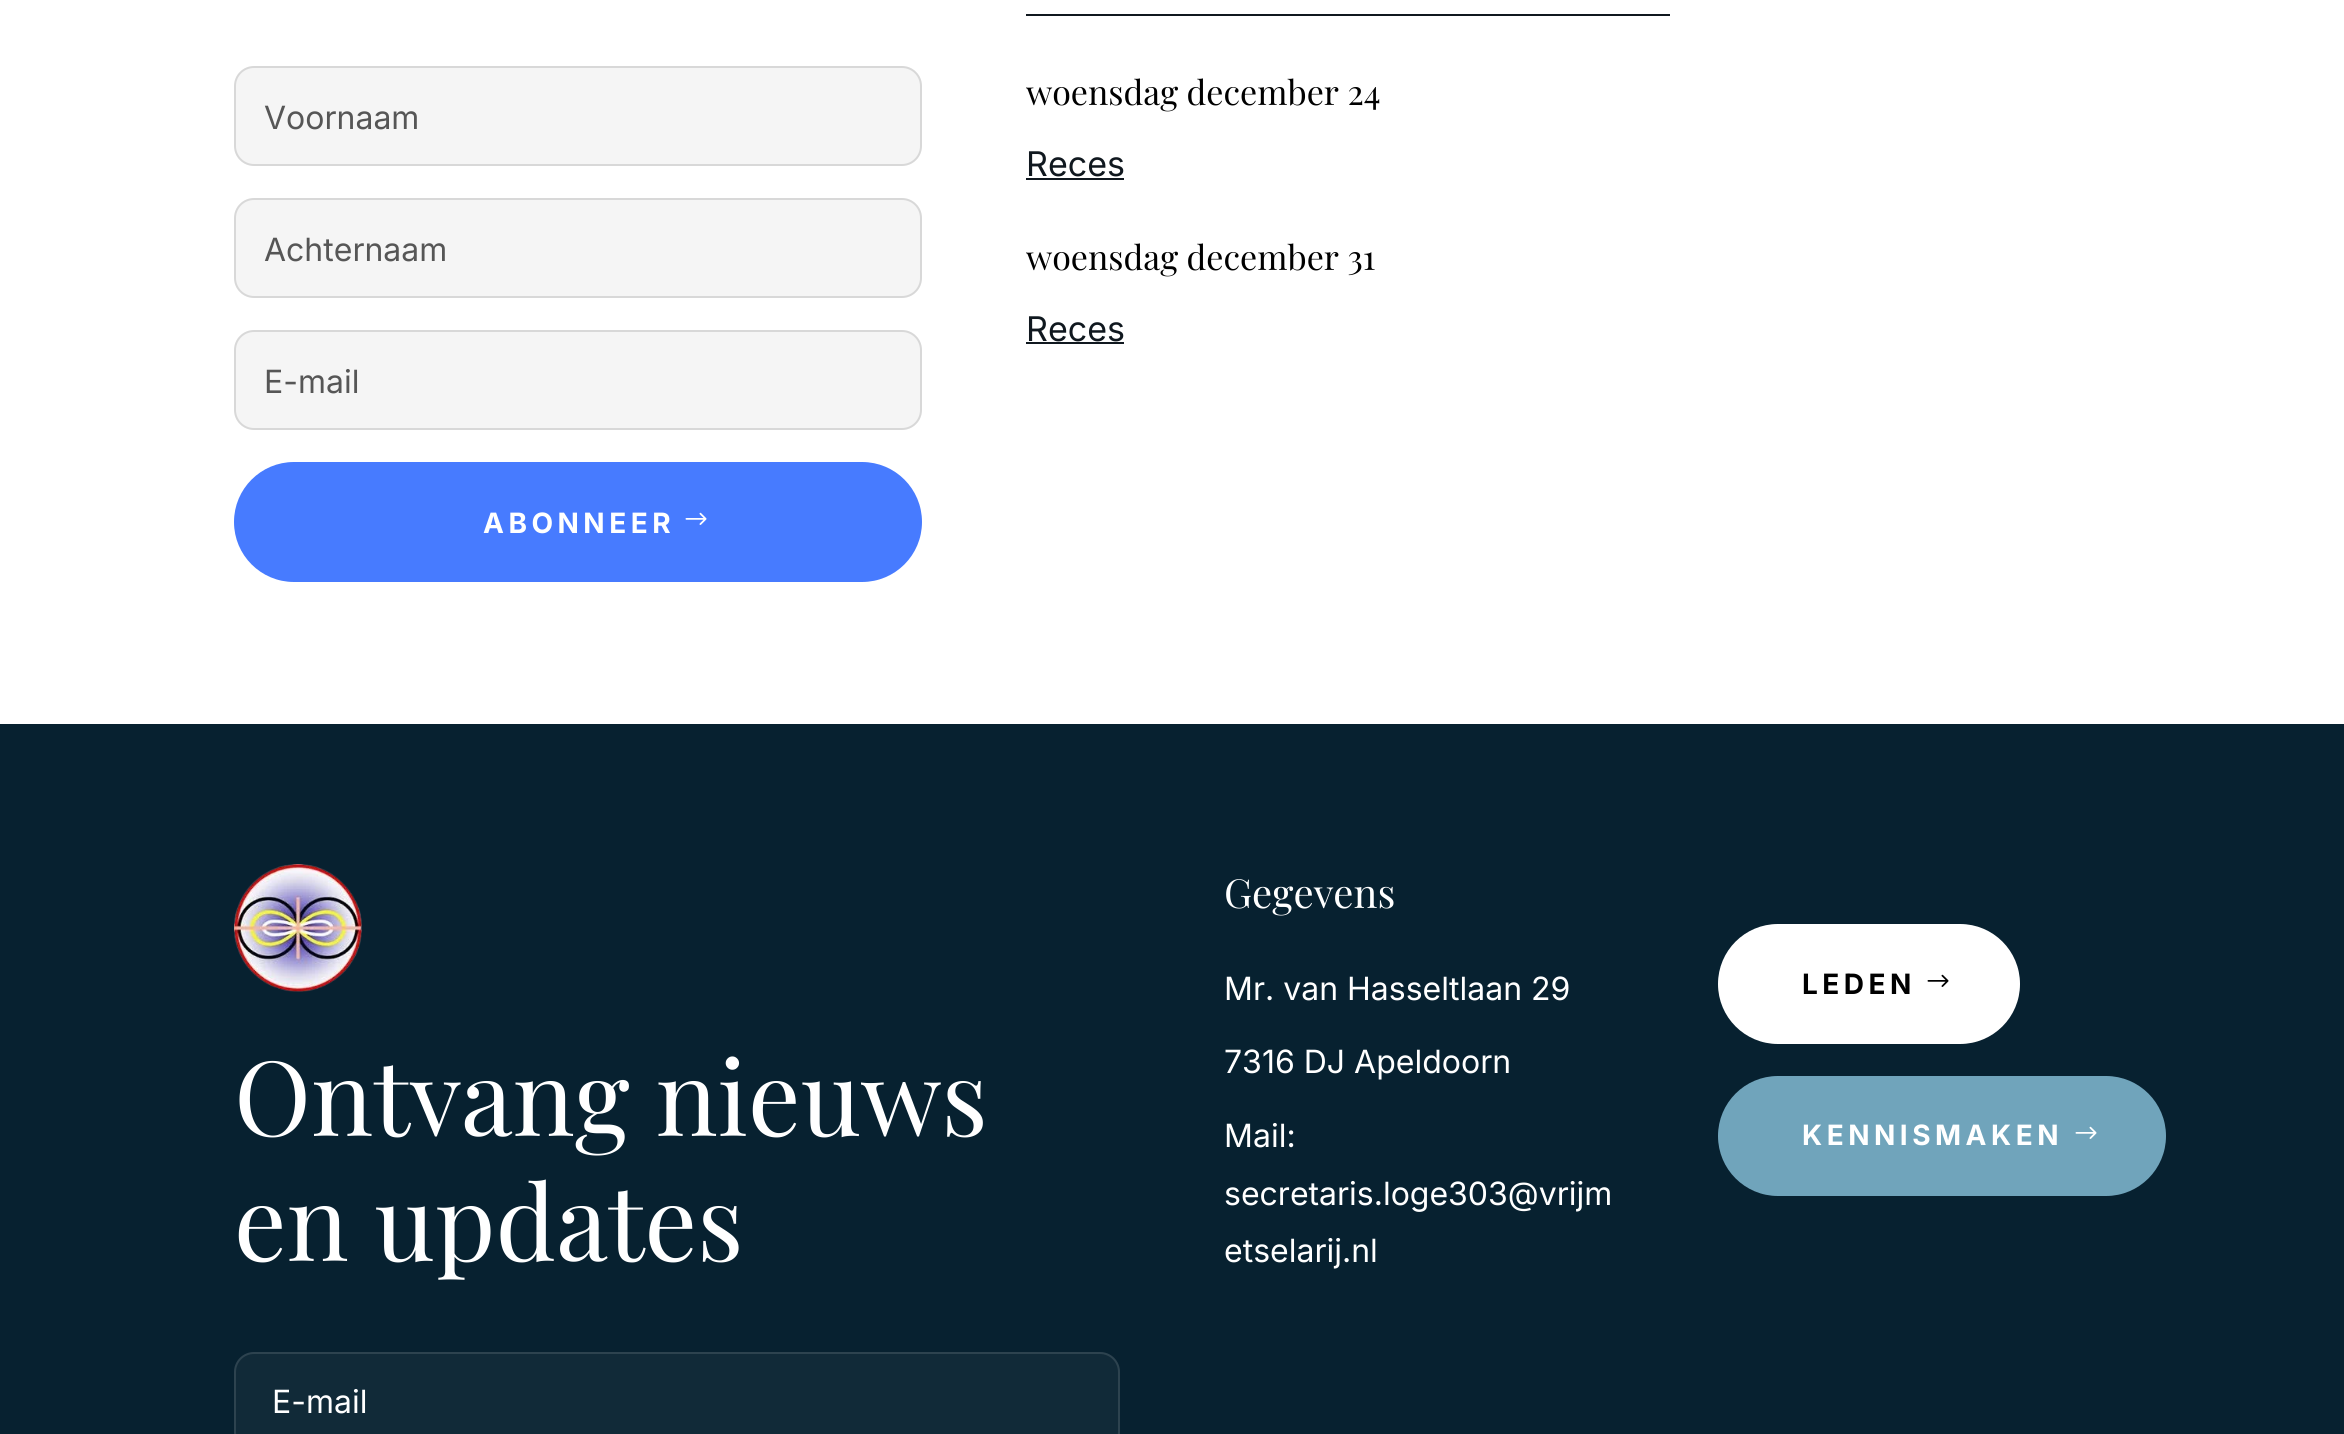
#include <cairo.h>
#include <math.h>
#include <stddef.h>

typedef struct { const char *family; double size; int italic, bold; unsigned color; } style_t;
static cairo_t *ctx;

static void ink(unsigned color) {
    cairo_set_source_rgb(ctx, (color >> 16) / 255.0, (color >> 8 & 255) / 255.0, (color & 255) / 255.0);
}

static void write(double x, double y, const char *s, const style_t *st) {
    cairo_select_font_face(ctx, st->family, st->italic ? CAIRO_FONT_SLANT_ITALIC : CAIRO_FONT_SLANT_NORMAL,
        st->bold ? CAIRO_FONT_WEIGHT_BOLD : CAIRO_FONT_WEIGHT_NORMAL);
    cairo_set_font_size(ctx, st->size);
    ink(st->color);
    cairo_move_to(ctx, x, y);
    cairo_show_text(ctx, s);
}

static void write_spaced(double x, double y, const char *s, double letter, double word) {
    cairo_move_to(ctx, x, y);
    while (*s) {
        char ch[5] = {0};
        int n = 0;
        do ch[n++] = *s++; while ((*s & 0xC0) == 0x80);
        cairo_show_text(ctx, ch);
        cairo_rel_move_to(ctx, letter + word * (*ch == ' '), 0);
    }
}

static void block(double x, double y, double w, double h, unsigned color) {
    ink(color);
    cairo_rectangle(ctx, x, y, w, h);
    cairo_fill(ctx);
}

static void round_path(double x, double y, double w, double h, double r) {
    cairo_new_sub_path(ctx);
    cairo_arc(ctx, x + w - r, y + h - r, r, 0, M_PI / 2);
    cairo_arc(ctx, x + r, y + h - r, r, M_PI / 2, M_PI);
    cairo_arc(ctx, x + r, y + r, r, M_PI, 1.5 * M_PI);
    cairo_arc(ctx, x + w - r, y + r, r, 1.5 * M_PI, 2 * M_PI);
    cairo_close_path(ctx);
}

static void paste(const char *path, double x, double y, double w, double h) {
    cairo_surface_t *image = cairo_image_surface_create_from_png(path);
    cairo_save(ctx);
    cairo_set_source_surface(ctx, image, x, y);
    cairo_rectangle(ctx, x, y, w, h);
    cairo_fill(ctx);
    cairo_restore(ctx);
    cairo_surface_destroy(image);
}

static const style_t s1 = {"Inter", 32, 0, 0, 0x565656};
static const style_t s2 = {"Playfair Display", 34, 0, 0, 0x000000};
static const style_t s3 = {"Inter", 34, 0, 0, 0x10181f};
static const style_t s4 = {"Playfair Display", 104, 0, 0, 0xffffff};
static const style_t s5 = {"Inter", 32, 0, 0, 0xffffff};
static const style_t s6 = {"Playfair Display", 40, 0, 0, 0xffffff};

int main(void) {
    cairo_surface_t *surface = cairo_image_surface_create(CAIRO_FORMAT_RGB24, 2344, 1434);
    ctx = cairo_create(surface);
    cairo_font_options_t *options = cairo_font_options_create();
    cairo_font_options_set_hint_metrics(options, CAIRO_HINT_METRICS_OFF);
    cairo_font_options_set_hint_style(options, CAIRO_HINT_STYLE_NONE);
    cairo_set_font_options(ctx, options);
    cairo_set_miter_limit(ctx, 4);
    ink(0xffffff);
    cairo_paint(ctx);
    ink(0xf5f5f5);
    round_path(234, 66, 688, 100, 20);
    cairo_fill(ctx);
    round_path(235, 67, 686, 98, 19);
    cairo_set_source_rgba(ctx, 0, 0, 0, 0.12);
    cairo_stroke(ctx);
    write(264, 129, "Voornaam", &s1);
    ink(0xf5f5f5);
    round_path(234, 198, 688, 100, 20);
    cairo_fill(ctx);
    round_path(235, 199, 686, 98, 19);
    cairo_set_source_rgba(ctx, 0, 0, 0, 0.12);
    cairo_stroke(ctx);
    write(264, 261, "Achternaam", &s1);
    ink(0xf5f5f5);
    round_path(234, 330, 688, 100, 20);
    cairo_fill(ctx);
    round_path(235, 331, 686, 98, 19);
    cairo_set_source_rgba(ctx, 0, 0, 0, 0.12);
    cairo_stroke(ctx);
    write(264, 393, "E-mail", &s1);
    ink(0x477bff);
    round_path(234, 462, 688, 120, 60);
    cairo_fill(ctx);
    cairo_select_font_face(ctx, "Inter", CAIRO_FONT_SLANT_NORMAL, CAIRO_FONT_WEIGHT_BOLD);
    cairo_set_font_size(ctx, 28);
    ink(0xffffff);
    write_spaced(483, 533, "ABONNEER", 4.5, 0);
    paste("pic1.png", 685, 512, 22, 13);
    block(1026, 14, 644, 2, 0x10181f);
    write(1026, 105, "woensdag december 24", &s2);
    write(1026, 176, "Reces", &s3);
    block(1026, 178, 98, 2, 0x10181f);
    write(1026, 270, "woensdag december 31", &s2);
    write(1026, 341, "Reces", &s3);
    block(1026, 342, 98, 2, 0x10181f);
    block(0, 724, 2344, 710, 0x072130);
    paste("pic2.png", 234, 864, 128, 128);
    write(234, 1136, "Ontvang nieuws", &s4);
    write(234, 1261, "en updates", &s4);
    ink(0x112a38);
    round_path(234, 1352, 886, 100, 20);
    cairo_fill(ctx);
    round_path(235, 1353, 884, 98, 19);
    cairo_set_source_rgba(ctx, 1, 1, 1, 0.12);
    cairo_stroke(ctx);
    write(272, 1413, "E-mail", &s5);
    write(1224, 908, "Gegevens", &s6);
    write(1224, 1000, "Mr. van Hasseltlaan 29", &s5);
    write(1224, 1073, "7316 DJ Apeldoorn", &s5);
    write(1224, 1147, "Mail:", &s5);
    write(1224, 1205, "secretaris.loge303@vrijm", &s5);
    write(1224, 1262, "etselarij.nl", &s5);
    round_path(1718, 924, 302, 120, 60);
    cairo_fill(ctx);
    cairo_select_font_face(ctx, "Inter", CAIRO_FONT_SLANT_NORMAL, CAIRO_FONT_WEIGHT_BOLD);
    cairo_set_font_size(ctx, 28);
    ink(0x000000);
    write_spaced(1802, 994, "LEDEN", 4.5, 0);
    paste("pic3.png", 1927, 974, 22, 13);
    ink(0x70a4bb);
    round_path(1718, 1076, 448, 120, 60);
    cairo_fill(ctx);
    ink(0xffffff);
    write_spaced(1802, 1145, "KENNISMAKEN", 4.5, 0);
    paste("pic4.png", 2075, 1126, 22, 13);
    cairo_surface_write_to_png(surface, "screenshot.png");
    cairo_font_options_destroy(options);
    cairo_destroy(ctx);
    cairo_surface_destroy(surface);
    return 0;
}
